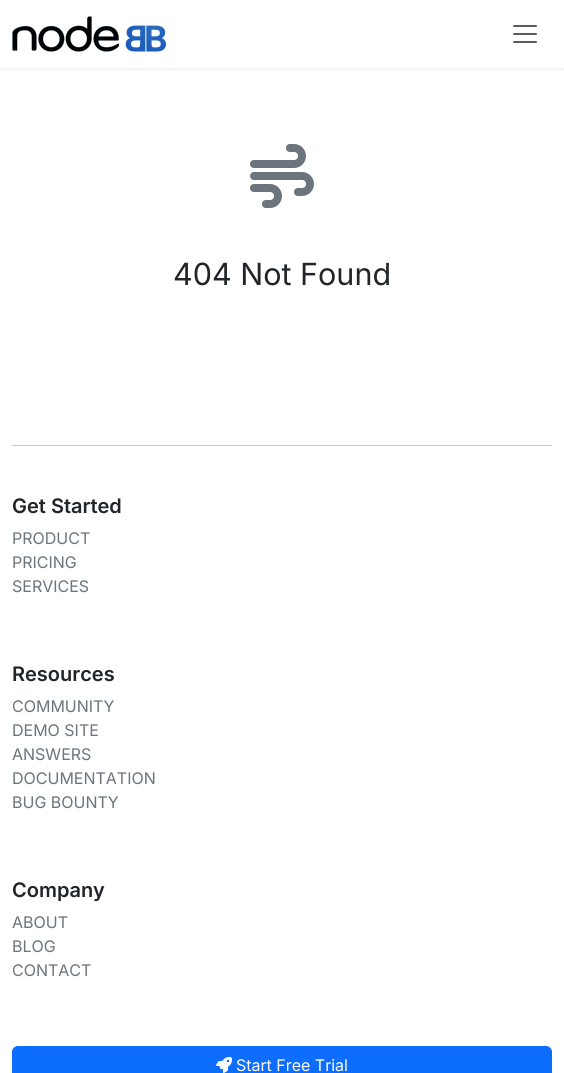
#include <cairo.h>
#include <math.h>
#include <stddef.h>

typedef struct { const char *family; double size; int italic, bold; unsigned color; } style_t;
static cairo_t *ctx;

static void ink(unsigned color) {
    cairo_set_source_rgb(ctx, (color >> 16) / 255.0, (color >> 8 & 255) / 255.0, (color & 255) / 255.0);
}

static void write(double x, double y, const char *s, const style_t *st) {
    cairo_select_font_face(ctx, st->family, st->italic ? CAIRO_FONT_SLANT_ITALIC : CAIRO_FONT_SLANT_NORMAL,
        st->bold ? CAIRO_FONT_WEIGHT_BOLD : CAIRO_FONT_WEIGHT_NORMAL);
    cairo_set_font_size(ctx, st->size);
    ink(st->color);
    cairo_move_to(ctx, x, y);
    cairo_show_text(ctx, s);
}

static void block(double x, double y, double w, double h, unsigned color) {
    ink(color);
    cairo_rectangle(ctx, x, y, w, h);
    cairo_fill(ctx);
}

static void round_path(double x, double y, double w, double h, double r) {
    cairo_new_sub_path(ctx);
    cairo_arc(ctx, x + w - r, y + h - r, r, 0, M_PI / 2);
    cairo_arc(ctx, x + r, y + h - r, r, M_PI / 2, M_PI);
    cairo_arc(ctx, x + r, y + r, r, M_PI, 1.5 * M_PI);
    cairo_arc(ctx, x + w - r, y + r, r, 1.5 * M_PI, 2 * M_PI);
    cairo_close_path(ctx);
}

static void blur_box(double x, double y, double w, double h, double r, double blur, double alpha) {
    cairo_push_group_with_content(ctx, CAIRO_CONTENT_ALPHA);
    cairo_set_operator(ctx, CAIRO_OPERATOR_SOURCE);
    for (int i = 15; i >= -15 && fmin(w, h) + blur * i / 3 > 0; i -= 2) {
        double e = blur * i / 6;
        cairo_set_source_rgba(ctx, 0, 0, 0, alpha * erfc((i - 1) / 8.5) / 2);
        round_path(x - e, y - e, w + 2 * e, h + 2 * e, fmax(0, fmin(r + e + blur * .6, fmin(w, h) / 2 + e)));
        cairo_fill(ctx);
    }
    cairo_pattern_t *soft = cairo_pop_group(ctx);
    cairo_mask(ctx, soft);
    cairo_pattern_destroy(soft);
}

static void paste(const char *path, double x, double y, double w, double h) {
    cairo_surface_t *image = cairo_image_surface_create_from_png(path);
    cairo_save(ctx);
    cairo_set_source_surface(ctx, image, x, y);
    cairo_rectangle(ctx, x, y, w, h);
    cairo_fill(ctx);
    cairo_restore(ctx);
    cairo_surface_destroy(image);
}

static const style_t s1 = {"Inter", 30.5, 0, 0, 0x212529};
static const style_t s2 = {"Inter SemiBold", 20, 0, 0, 0x212529};
static const style_t s3 = {"Inter", 16, 0, 0, 0x6c757d};
static const style_t s4 = {"Inter", 16, 0, 0, 0xffffff};

int main(void) {
    cairo_surface_t *surface = cairo_image_surface_create(CAIRO_FORMAT_RGB24, 564, 1073);
    ctx = cairo_create(surface);
    cairo_font_options_t *options = cairo_font_options_create();
    cairo_font_options_set_hint_metrics(options, CAIRO_HINT_METRICS_OFF);
    cairo_font_options_set_hint_style(options, CAIRO_HINT_STYLE_NONE);
    cairo_set_font_options(ctx, options);
    cairo_set_miter_limit(ctx, 4);
    ink(0xffffff);
    cairo_paint(ctx);
    cairo_save(ctx);
    cairo_rectangle(ctx, 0, 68, 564, 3);
    cairo_clip(ctx);
    ink(0x000000);
    blur_box(0, 2, 564, 68, 0, 2, 0.07);
    cairo_restore(ctx);
    paste("pic1.png", 12, 16, 154, 36);
    paste("pic2.png", 513, 25, 24, 18);
    paste("pic3.png", 250, 144, 64, 64);
    write(173, 285, "404 Not Found", &s1);
    block(12, 445, 540, 1, 0xc8c9ca);
    write(12, 513, "Get Started", &s2);
    write(12, 544, "PRODUCT", &s3);
    write(12, 568, "PRICING", &s3);
    write(12, 592, "SERVICES", &s3);
    write(12, 681, "Resources", &s2);
    write(12, 712, "COMMUNITY", &s3);
    write(12, 736, "DEMO SITE", &s3);
    write(12, 760, "ANSWERS", &s3);
    write(12, 784, "DOCUMENTATION", &s3);
    write(12, 808, "BUG BOUNTY", &s3);
    write(12, 897, "Company", &s2);
    write(12, 928, "ABOUT", &s3);
    write(12, 952, "BLOG", &s3);
    write(12, 976, "CONTACT", &s3);
    ink(0x0d6efd);
    round_path(12.5, 1046.5, 539, 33, 5.5);
    cairo_fill_preserve(ctx);
    cairo_set_line_width(ctx, 1);
    cairo_stroke(ctx);
    paste("pic4.png", 216, 1057, 16, 16);
    write(236, 1071, "Start Free Trial", &s4);
    cairo_surface_write_to_png(surface, "screenshot.png");
    cairo_font_options_destroy(options);
    cairo_destroy(ctx);
    cairo_surface_destroy(surface);
    return 0;
}
